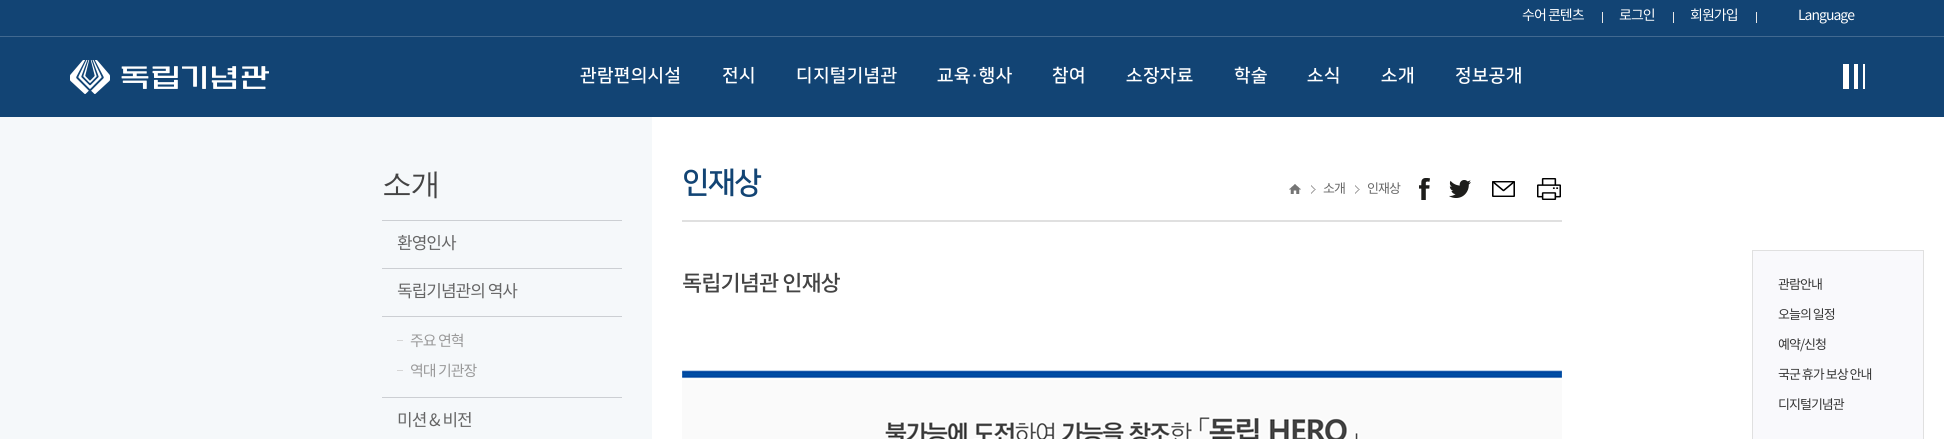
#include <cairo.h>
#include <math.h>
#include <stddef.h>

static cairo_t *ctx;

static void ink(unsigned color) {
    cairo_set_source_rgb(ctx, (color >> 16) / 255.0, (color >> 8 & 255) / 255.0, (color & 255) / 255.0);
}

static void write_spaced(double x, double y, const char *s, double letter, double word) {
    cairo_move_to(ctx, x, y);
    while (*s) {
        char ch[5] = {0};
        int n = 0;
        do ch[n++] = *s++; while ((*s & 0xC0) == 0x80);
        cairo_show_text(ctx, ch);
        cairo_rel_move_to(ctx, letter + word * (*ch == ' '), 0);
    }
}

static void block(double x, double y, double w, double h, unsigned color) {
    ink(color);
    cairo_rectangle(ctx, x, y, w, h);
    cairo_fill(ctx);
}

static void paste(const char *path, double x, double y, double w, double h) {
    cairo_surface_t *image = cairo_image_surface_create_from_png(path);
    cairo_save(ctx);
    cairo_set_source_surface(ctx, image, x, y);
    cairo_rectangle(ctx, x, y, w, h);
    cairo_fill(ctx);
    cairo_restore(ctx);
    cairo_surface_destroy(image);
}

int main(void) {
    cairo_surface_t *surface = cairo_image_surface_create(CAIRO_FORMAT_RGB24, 1944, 439);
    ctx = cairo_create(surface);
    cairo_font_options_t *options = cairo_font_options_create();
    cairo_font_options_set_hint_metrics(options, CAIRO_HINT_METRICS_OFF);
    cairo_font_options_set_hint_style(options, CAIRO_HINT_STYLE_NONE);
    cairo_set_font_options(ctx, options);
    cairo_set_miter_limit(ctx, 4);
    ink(0x124474);
    cairo_paint(ctx);
    block(0, 36, 1944, 1, 0x416990);
    cairo_select_font_face(ctx, "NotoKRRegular", CAIRO_FONT_SLANT_NORMAL, CAIRO_FONT_WEIGHT_NORMAL);
    cairo_set_font_size(ctx, 14);
    ink(0xffffff);
    write_spaced(1522, 20, "수어 콘텐츠", -1, 0);
    block(1602, 12, 1, 11, 0xe8e8e8);
    ink(0xffffff);
    write_spaced(1619, 20, "로그인", -1, 0);
    block(1673, 12, 1, 11, 0xe8e8e8);
    ink(0xffffff);
    write_spaced(1690, 20, "회원가입", -1, 0);
    block(1756, 12, 1, 11, 0xe8e8e8);
    ink(0xffffff);
    write_spaced(1798, 20, "Language", -1, 0);
    paste("pic1.png", 70, 60, 199, 34);
    cairo_select_font_face(ctx, "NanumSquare", CAIRO_FONT_SLANT_NORMAL, CAIRO_FONT_WEIGHT_BOLD);
    cairo_set_font_size(ctx, 18);
    write_spaced(580, 81, "관람편의시설", 0.5, 0);
    write_spaced(722, 81, "전시", 0.5, 0);
    write_spaced(796, 81, "디지털기념관", 0.5, 0);
    write_spaced(937, 81, "교육·행사", 0.5, 0);
    write_spaced(1052, 81, "참여", 0.5, 0);
    write_spaced(1126, 81, "소장자료", 0.5, 0);
    write_spaced(1234, 81, "학술", 0.5, 0);
    write_spaced(1307, 81, "소식", 0.5, 0);
    write_spaced(1381, 81, "소개", 0.5, 0);
    write_spaced(1455, 81, "정보공개", 0.5, 0);
    paste("pic2.png", 1843, 64, 22, 25);
    block(0, 117, 652, 322, 0xf5f8fa);
    block(652, 117, 1292, 322, 0xffffff);
    cairo_select_font_face(ctx, "WenQuanYi Zen Hei Medium", CAIRO_FONT_SLANT_NORMAL, CAIRO_FONT_WEIGHT_NORMAL);
    cairo_set_font_size(ctx, 30);
    ink(0x444444);
    write_spaced(382, 194, "소개", -1, 0);
    block(382, 220, 240, 1, 0xcccfd3);
    cairo_select_font_face(ctx, "NotoKRRegular", CAIRO_FONT_SLANT_NORMAL, CAIRO_FONT_WEIGHT_NORMAL);
    cairo_set_font_size(ctx, 17);
    ink(0x666666);
    write_spaced(397, 249, "환영인사", -1, 0);
    block(382, 268, 240, 1, 0xcccfd3);
    ink(0x666666);
    write_spaced(397, 297, "독립기념관의 역사", -1, 0);
    block(382, 316, 240, 1, 0xcccfd3);
    block(397, 340, 6, 1, 0xd6d6d6);
    cairo_set_font_size(ctx, 15);
    ink(0x999999);
    write_spaced(410, 346, "주요 연혁", -1, 0);
    block(397, 370, 6, 1, 0xd6d6d6);
    ink(0x999999);
    write_spaced(410, 376, "역대 기관장", -1, 0);
    block(382, 397, 240, 1, 0xcccfd3);
    cairo_set_font_size(ctx, 17);
    ink(0x666666);
    write_spaced(397, 426, "미션 & 비전", -1, 0);
    block(682, 220, 880, 2, 0xe0e0e0);
    cairo_select_font_face(ctx, "NanumSquare", CAIRO_FONT_SLANT_NORMAL, CAIRO_FONT_WEIGHT_BOLD);
    cairo_set_font_size(ctx, 30);
    ink(0x124474);
    write_spaced(682, 192, "인재상", -1, 0);
    paste("pic3.png", 1289, 184, 12, 10);
    paste("pic4.png", 1311, 185, 5, 9);
    cairo_select_font_face(ctx, "NotoKRRegular", CAIRO_FONT_SLANT_NORMAL, CAIRO_FONT_WEIGHT_NORMAL);
    cairo_set_font_size(ctx, 13);
    ink(0x666666);
    write_spaced(1323, 193, "소개", -1, 0);
    paste("pic4.png", 1355, 185, 5, 9);
    write_spaced(1367, 193, "인재상", -1, 0);
    paste("pic5.png", 1419, 178, 11, 22);
    paste("pic6.png", 1449, 180, 22, 18);
    paste("pic7.png", 1492, 181, 23, 16);
    paste("pic8.png", 1537, 178, 24, 22);
    cairo_select_font_face(ctx, "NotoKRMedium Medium", CAIRO_FONT_SLANT_NORMAL, CAIRO_FONT_WEIGHT_NORMAL);
    cairo_set_font_size(ctx, 22);
    ink(0x444444);
    write_spaced(682, 291, "독립기념관 인재상", -1, 0);
    paste("pic9.png", 682, 370, 880, 69);
    ink(0xf9f9fc);
    cairo_rectangle(ctx, 1752.5, 250.5, 171, 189);
    cairo_fill_preserve(ctx);
    ink(0xe0e0e0);
    cairo_set_line_width(ctx, 1);
    cairo_stroke(ctx);
    cairo_select_font_face(ctx, "NotoKRRegular", CAIRO_FONT_SLANT_NORMAL, CAIRO_FONT_WEIGHT_NORMAL);
    cairo_set_font_size(ctx, 13);
    ink(0x333333);
    write_spaced(1778, 289, "관람안내", -1, 0);
    write_spaced(1778, 319, "오늘의 일정", -1, 0);
    write_spaced(1778, 349, "예약/신청", -1, 0);
    write_spaced(1778, 379, "국군 휴가 보상 안내", -1, 0);
    write_spaced(1778, 409, "디지털기념관", -1, 0);
    cairo_surface_write_to_png(surface, "screenshot.png");
    cairo_font_options_destroy(options);
    cairo_destroy(ctx);
    cairo_surface_destroy(surface);
    return 0;
}
